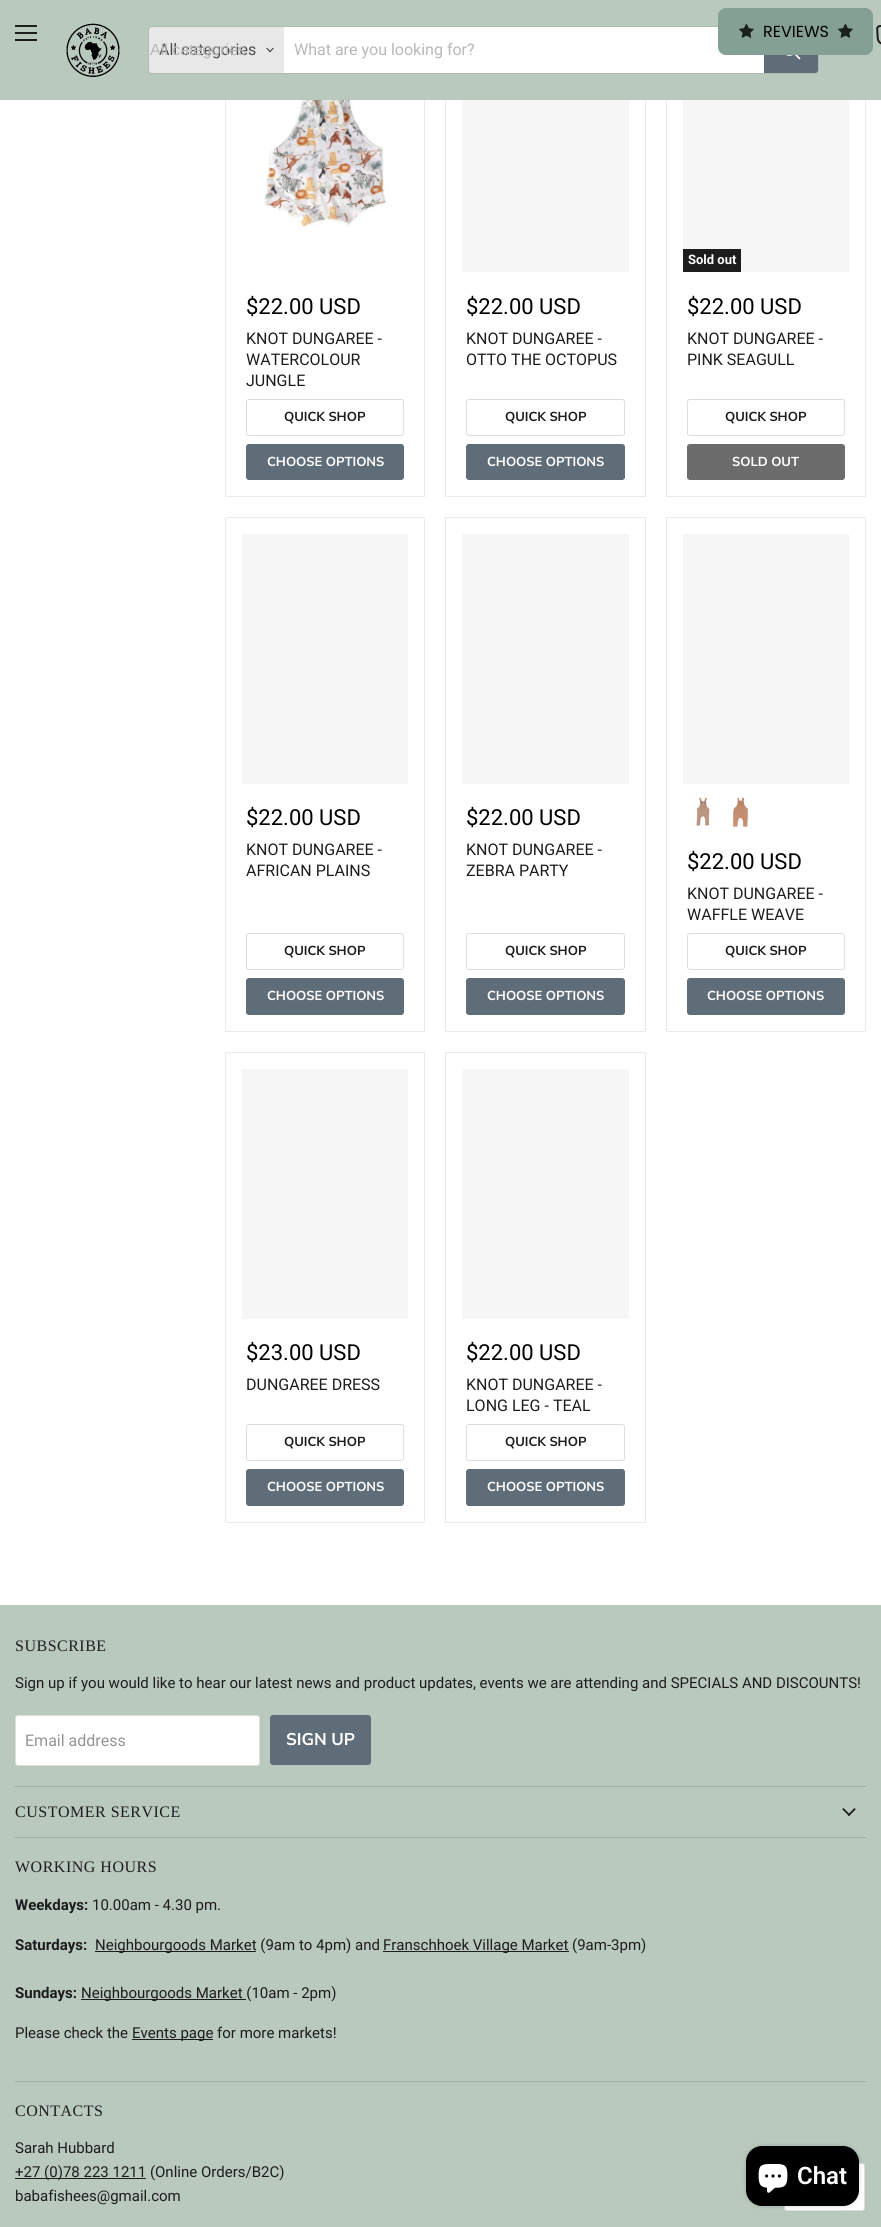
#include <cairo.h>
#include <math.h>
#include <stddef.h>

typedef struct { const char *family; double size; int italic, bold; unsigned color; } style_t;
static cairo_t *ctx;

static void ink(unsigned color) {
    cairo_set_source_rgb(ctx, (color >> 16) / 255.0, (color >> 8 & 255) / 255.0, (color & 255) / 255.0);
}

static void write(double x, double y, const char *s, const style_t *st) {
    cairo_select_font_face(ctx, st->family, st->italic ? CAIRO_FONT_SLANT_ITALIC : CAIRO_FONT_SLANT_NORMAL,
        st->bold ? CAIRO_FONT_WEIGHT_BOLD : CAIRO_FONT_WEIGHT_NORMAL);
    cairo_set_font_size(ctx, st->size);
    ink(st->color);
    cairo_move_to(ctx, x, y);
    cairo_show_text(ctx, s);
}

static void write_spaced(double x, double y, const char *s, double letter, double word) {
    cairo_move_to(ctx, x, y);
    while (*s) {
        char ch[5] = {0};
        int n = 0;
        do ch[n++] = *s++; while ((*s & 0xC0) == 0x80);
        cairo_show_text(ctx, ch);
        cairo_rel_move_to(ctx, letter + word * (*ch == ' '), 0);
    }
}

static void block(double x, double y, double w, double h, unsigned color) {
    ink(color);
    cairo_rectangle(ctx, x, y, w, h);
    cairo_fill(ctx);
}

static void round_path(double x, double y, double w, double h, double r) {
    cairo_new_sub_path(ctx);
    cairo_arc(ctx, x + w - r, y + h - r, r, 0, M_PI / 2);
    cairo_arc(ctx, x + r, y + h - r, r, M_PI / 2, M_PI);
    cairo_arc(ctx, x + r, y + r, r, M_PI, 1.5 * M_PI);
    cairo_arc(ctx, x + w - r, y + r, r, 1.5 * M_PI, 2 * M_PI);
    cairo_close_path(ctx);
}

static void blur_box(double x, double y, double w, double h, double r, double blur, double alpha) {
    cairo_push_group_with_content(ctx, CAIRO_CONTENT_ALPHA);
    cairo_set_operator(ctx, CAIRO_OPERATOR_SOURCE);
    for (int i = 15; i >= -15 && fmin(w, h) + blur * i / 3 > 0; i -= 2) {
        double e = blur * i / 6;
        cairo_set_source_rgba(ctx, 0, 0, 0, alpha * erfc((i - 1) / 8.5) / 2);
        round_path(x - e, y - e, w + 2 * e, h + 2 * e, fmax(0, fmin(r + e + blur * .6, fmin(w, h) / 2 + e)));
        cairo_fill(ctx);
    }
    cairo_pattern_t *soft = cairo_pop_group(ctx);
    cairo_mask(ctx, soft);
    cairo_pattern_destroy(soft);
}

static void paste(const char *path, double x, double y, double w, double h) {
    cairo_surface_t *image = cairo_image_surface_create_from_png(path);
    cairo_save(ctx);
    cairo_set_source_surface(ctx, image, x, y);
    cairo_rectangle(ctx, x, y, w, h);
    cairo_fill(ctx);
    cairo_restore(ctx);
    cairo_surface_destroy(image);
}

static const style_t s1 = {"Poppins", 16, 0, 0, 0x000000};
static const style_t s2 = {"Roboto", 16, 0, 0, 0x4d4d4d};
static const style_t s3 = {"Liberation Sans", 16, 0, 0, 0xb8b8b8};
static const style_t s4 = {"Roboto", 16, 0, 0, 0xb8b8b8};
static const style_t s5 = {"Roboto", 22, 0, 0, 0x000000};
static const style_t s6 = {"Roboto", 16, 0, 0, 0x1d1d1d};
static const style_t s7 = {"Nunito Sans", 13, 0, 1, 0x1d1d1d};
static const style_t s8 = {"Nunito Sans", 13, 0, 1, 0xffffff};
static const style_t s9 = {"Roboto", 13, 0, 1, 0xffffff};
static const style_t s10 = {"Roboto", 15, 0, 0, 0x1d1d1d};
static const style_t s11 = {"Roboto", 16, 0, 0, 0x949494};
static const style_t s12 = {"Nunito Sans", 17, 0, 1, 0xffffff};
static const style_t s13 = {"Roboto", 15, 0, 1, 0x1d1d1d};
static const style_t s14 = {"Roboto SemiBold", 24, 0, 0, 0xffffff};

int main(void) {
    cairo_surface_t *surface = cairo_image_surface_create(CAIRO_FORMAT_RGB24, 881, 2227);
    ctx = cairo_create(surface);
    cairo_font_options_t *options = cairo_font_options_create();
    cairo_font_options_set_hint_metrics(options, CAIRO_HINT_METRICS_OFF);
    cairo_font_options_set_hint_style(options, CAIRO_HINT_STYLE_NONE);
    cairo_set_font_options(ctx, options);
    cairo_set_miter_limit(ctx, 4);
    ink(0xffffff);
    cairo_paint(ctx);
    cairo_rectangle(ctx, 225.5, 6.5, 199, 490);
    ink(0xebebeb);
    cairo_set_line_width(ctx, 1);
    cairo_stroke(ctx);
    cairo_rectangle(ctx, 445.5, 6.5, 200, 490);
    cairo_stroke(ctx);
    cairo_rectangle(ctx, 666.5, 6.5, 199, 490);
    cairo_stroke(ctx);
    block(0, 0, 881, 100, 0xb9c9be);
    round_path(148.5, 26.5, 670, 47, 3.5);
    ink(0xaebab2);
    cairo_stroke(ctx);
    block(284, 27, 480, 46, 0xffffff);
    ink(0x5f6d78);
    cairo_new_path(ctx);
    cairo_move_to(ctx, 764.5, 27.5);
    cairo_line_to(ctx, 815, 27.5);
    cairo_curve_to(ctx, 816.5, 27.5, 817.5, 28.5, 817.5, 30);
    cairo_line_to(ctx, 817.5, 70);
    cairo_curve_to(ctx, 817.5, 71.5, 816.5, 72.5, 815, 72.5);
    cairo_line_to(ctx, 764.5, 72.5);
    cairo_close_path(ctx);
    cairo_fill_preserve(ctx);
    cairo_stroke(ctx);
    cairo_new_path(ctx);
    cairo_move_to(ctx, 799.5, 58.5);
    cairo_line_to(ctx, 794.5, 53.5);
    ink(0xffffff);
    cairo_set_line_width(ctx, 1.7);
    cairo_set_line_cap(ctx, CAIRO_LINE_CAP_ROUND);
    cairo_stroke(ctx);
    cairo_arc(ctx, 789.5, 48, 7, 0, 2 * M_PI);
    cairo_set_line_cap(ctx, CAIRO_LINE_CAP_BUTT);
    cairo_stroke(ctx);
    ink(0x849f94);
    round_path(718, 8, 155, 47, 8);
    cairo_fill(ctx);
    paste("pic1.png", 739, 23, 15, 15);
    write(763, 37, "REVIEWS", &s1);
    paste("pic1.png", 838, 23, 15, 15);
    block(15, 25, 22, 2, 0x1d1d1d);
    block(15, 32, 22, 2, 0x1d1d1d);
    block(15, 39, 22, 2, 0x1d1d1d);
    paste("pic2.png", 876, 25, 5, 20);
    paste("pic3.png", 66, 23, 54, 54);
    ink(0xe8e8e8);
    cairo_new_path(ctx);
    cairo_move_to(ctx, 152, 27);
    cairo_line_to(ctx, 284, 27);
    cairo_line_to(ctx, 284, 73);
    cairo_line_to(ctx, 152, 73);
    cairo_curve_to(ctx, 150.5, 73, 149, 71.5, 149, 70);
    cairo_line_to(ctx, 149, 30);
    cairo_curve_to(ctx, 149, 28.5, 150.5, 27, 152, 27);
    cairo_close_path(ctx);
    cairo_fill(ctx);
    write(159, 55, "All categories", &s2);
    write(150, 55, "All categories", &s3);
    paste("pic4.png", 266, 47, 8, 6);
    write(294, 55, "What are you looking for?", &s4);
    paste("pic5.png", 264, 100, 123, 127);
    write(246, 314, "$22.00 USD", &s5);
    write(246, 344, "KNOT DUNGAREE -", &s6);
    write(246, 365, "WATERCOLOUR", &s6);
    write(246, 386, "JUNGLE", &s6);
    round_path(246.5, 399.5, 157, 36, 2.5);
    ink(0xdddddd);
    cairo_set_line_width(ctx, 1);
    cairo_stroke(ctx);
    write(284, 421, "QUICK SHOP", &s7);
    ink(0x5f6d78);
    round_path(246.5, 444.5, 157, 35, 2.5);
    cairo_fill_preserve(ctx);
    cairo_stroke(ctx);
    write(267, 466, "CHOOSE OPTIONS", &s8);
    block(462, 100, 167, 172, 0xf6f6f6);
    write(466, 314, "$22.00 USD", &s5);
    write(466, 344, "KNOT DUNGAREE -", &s6);
    write(466, 365, "OTTO THE OCTOPUS", &s6);
    round_path(466.5, 399.5, 158, 36, 2.5);
    ink(0xdddddd);
    cairo_stroke(ctx);
    write(505, 421, "QUICK SHOP", &s7);
    ink(0x5f6d78);
    round_path(466.5, 444.5, 158, 35, 2.5);
    cairo_fill_preserve(ctx);
    cairo_stroke(ctx);
    write(487, 466, "CHOOSE OPTIONS", &s8);
    block(683, 100, 166, 172, 0xf6f6f6);
    block(683, 249, 58, 23, 0x1d1d1d);
    write(688, 264, "Sold out", &s9);
    write(687, 314, "$22.00 USD", &s5);
    write(687, 344, "KNOT DUNGAREE -", &s6);
    write(687, 365, "PINK SEAGULL", &s6);
    round_path(687.5, 399.5, 157, 36, 2.5);
    ink(0xdddddd);
    cairo_stroke(ctx);
    write(725, 421, "QUICK SHOP", &s7);
    ink(0x6c6c6c);
    round_path(687.5, 444.5, 157, 35, 2.5);
    cairo_fill_preserve(ctx);
    cairo_stroke(ctx);
    write(732, 466, "SOLD OUT", &s8);
    cairo_rectangle(ctx, 225.5, 517.5, 199, 514);
    ink(0xebebeb);
    cairo_stroke(ctx);
    block(242, 534, 166, 250, 0xf6f6f6);
    write(246, 825, "$22.00 USD", &s5);
    write(246, 855, "KNOT DUNGAREE -", &s6);
    write(246, 876, "AFRICAN PLAINS", &s6);
    round_path(246.5, 933.5, 157, 36, 2.5);
    ink(0xdddddd);
    cairo_stroke(ctx);
    write(284, 955, "QUICK SHOP", &s7);
    ink(0x5f6d78);
    round_path(246.5, 978.5, 157, 36, 2.5);
    cairo_fill_preserve(ctx);
    cairo_stroke(ctx);
    write(267, 1000, "CHOOSE OPTIONS", &s8);
    cairo_rectangle(ctx, 445.5, 517.5, 200, 514);
    ink(0xebebeb);
    cairo_stroke(ctx);
    block(462, 534, 167, 250, 0xf6f6f6);
    write(466, 825, "$22.00 USD", &s5);
    write(466, 855, "KNOT DUNGAREE -", &s6);
    write(466, 876, "ZEBRA PARTY", &s6);
    round_path(466.5, 933.5, 158, 36, 2.5);
    ink(0xdddddd);
    cairo_stroke(ctx);
    write(505, 955, "QUICK SHOP", &s7);
    ink(0x5f6d78);
    round_path(466.5, 978.5, 158, 36, 2.5);
    cairo_fill_preserve(ctx);
    cairo_stroke(ctx);
    write(487, 1000, "CHOOSE OPTIONS", &s8);
    cairo_rectangle(ctx, 666.5, 517.5, 199, 514);
    ink(0xebebeb);
    cairo_stroke(ctx);
    block(683, 534, 166, 250, 0xf6f6f6);
    paste("pic6.png", 696, 797, 15, 29);
    paste("pic7.png", 732, 796, 17, 32);
    write(687, 869, "$22.00 USD", &s5);
    write(687, 899, "KNOT DUNGAREE -", &s6);
    write(687, 920, "WAFFLE WEAVE", &s6);
    round_path(687.5, 933.5, 157, 36, 2.5);
    ink(0xdddddd);
    cairo_stroke(ctx);
    write(725, 955, "QUICK SHOP", &s7);
    ink(0x5f6d78);
    round_path(687.5, 978.5, 157, 36, 2.5);
    cairo_fill_preserve(ctx);
    cairo_stroke(ctx);
    write(707, 1000, "CHOOSE OPTIONS", &s8);
    cairo_rectangle(ctx, 225.5, 1052.5, 199, 470);
    ink(0xebebeb);
    cairo_stroke(ctx);
    block(242, 1069, 166, 250, 0xf6f6f6);
    write(246, 1360, "$23.00 USD", &s5);
    write(246, 1390, "DUNGAREE DRESS", &s6);
    round_path(246.5, 1424.5, 157, 36, 2.5);
    ink(0xdddddd);
    cairo_stroke(ctx);
    write(284, 1446, "QUICK SHOP", &s7);
    ink(0x5f6d78);
    round_path(246.5, 1469.5, 157, 36, 2.5);
    cairo_fill_preserve(ctx);
    cairo_stroke(ctx);
    write(267, 1491, "CHOOSE OPTIONS", &s8);
    cairo_rectangle(ctx, 445.5, 1052.5, 200, 470);
    ink(0xebebeb);
    cairo_stroke(ctx);
    block(462, 1069, 167, 250, 0xf6f6f6);
    write(466, 1360, "$22.00 USD", &s5);
    write(466, 1390, "KNOT DUNGAREE -", &s6);
    write(466, 1411, "LONG LEG - TEAL", &s6);
    round_path(466.5, 1424.5, 158, 36, 2.5);
    ink(0xdddddd);
    cairo_stroke(ctx);
    write(505, 1446, "QUICK SHOP", &s7);
    ink(0x5f6d78);
    round_path(466.5, 1469.5, 158, 36, 2.5);
    cairo_fill_preserve(ctx);
    cairo_stroke(ctx);
    write(487, 1491, "CHOOSE OPTIONS", &s8);
    block(0, 1605, 881, 622, 0xb9c9be);
    block(15, 1786, 851, 1, 0xa2afa6);
    cairo_select_font_face(ctx, "Liberation Serif", CAIRO_FONT_SLANT_NORMAL, CAIRO_FONT_WEIGHT_NORMAL);
    cairo_set_font_size(ctx, 16);
    ink(0x1d1d1d);
    write_spaced(15, 1651, "SUBSCRIBE", 0.5, 0);
    write(15, 1688, "Sign up if you would like to hear our latest news and product updates, events we are attending and SPECIALS AND DISCOUNTS!", &s10);
    ink(0xffffff);
    round_path(15.5, 1715.5, 244, 50, 2.5);
    cairo_fill_preserve(ctx);
    ink(0xdddddd);
    cairo_stroke(ctx);
    write(25, 1746, "Email address", &s11);
    ink(0x5f6d78);
    round_path(270.5, 1715.5, 100, 49, 2.5);
    cairo_fill_preserve(ctx);
    cairo_stroke(ctx);
    write(286, 1745, "SIGN UP", &s12);
    block(15, 1837, 851, 1, 0xa2afa6);
    cairo_select_font_face(ctx, "Liberation Serif", CAIRO_FONT_SLANT_NORMAL, CAIRO_FONT_WEIGHT_NORMAL);
    cairo_set_font_size(ctx, 16);
    ink(0x1d1d1d);
    write_spaced(15, 1817, "CUSTOMER SERVICE", 0.5, 0);
    paste("pic8.png", 842, 1808, 14, 8);
    block(15, 2081, 851, 1, 0xa2afa6);
    ink(0x1d1d1d);
    write_spaced(15, 1872, "WORKING HOURS", 0.5, 0);
    write(15, 1910, "Weekdays:", &s13);
    write(92, 1910, "10.00am - 4.30 pm.", &s10);
    write(15, 1950, "Saturdays:", &s13);
    block(95, 1951, 161, 1, 0x1d1d1d);
    write(95, 1950, "Neighbourgoods Market (9am to 4pm) and", &s10);
    block(383, 1951, 186, 1, 0x1d1d1d);
    write(383, 1950, "Franschhoek Village Market (9am-3pm)", &s10);
    write(15, 1998, "Sundays:", &s13);
    block(81, 1999, 165, 1, 0x1d1d1d);
    write(81, 1998, "Neighbourgoods Market (10am - 2pm)", &s10);
    write(15, 2038, "Please check the", &s10);
    block(132, 2039, 81, 1, 0x1d1d1d);
    write(132, 2038, "Events page for more markets!", &s10);
    cairo_select_font_face(ctx, "Liberation Serif", CAIRO_FONT_SLANT_NORMAL, CAIRO_FONT_WEIGHT_NORMAL);
    cairo_set_font_size(ctx, 16);
    write_spaced(15, 2116, "CONTACTS", 0.5, 0);
    write(15, 2153, "Sarah Hubbard", &s10);
    block(15, 2178, 131, 1, 0x1d1d1d);
    write(15, 2177, "+27 (0)78 223 1211 (Online Orders/B2C)", &s10);
    write(15, 2201, "babafishees@gmail.com", &s10);
    ink(0xffffff);
    round_path(784.5, 2163.5, 80, 47, 2.5);
    cairo_fill_preserve(ctx);
    ink(0xdddddd);
    cairo_stroke(ctx);
    ink(0x000000);
    blur_box(746, 2146, 113, 60, 16, 2.5, 0.15);
    ink(0x000000);
    round_path(746, 2146, 113, 60, 16);
    cairo_fill(ctx);
    paste("pic9.png", 758, 2164, 30, 29);
    write(797, 2184, "Chat", &s14);
    cairo_surface_write_to_png(surface, "screenshot.png");
    cairo_font_options_destroy(options);
    cairo_destroy(ctx);
    cairo_surface_destroy(surface);
    return 0;
}
